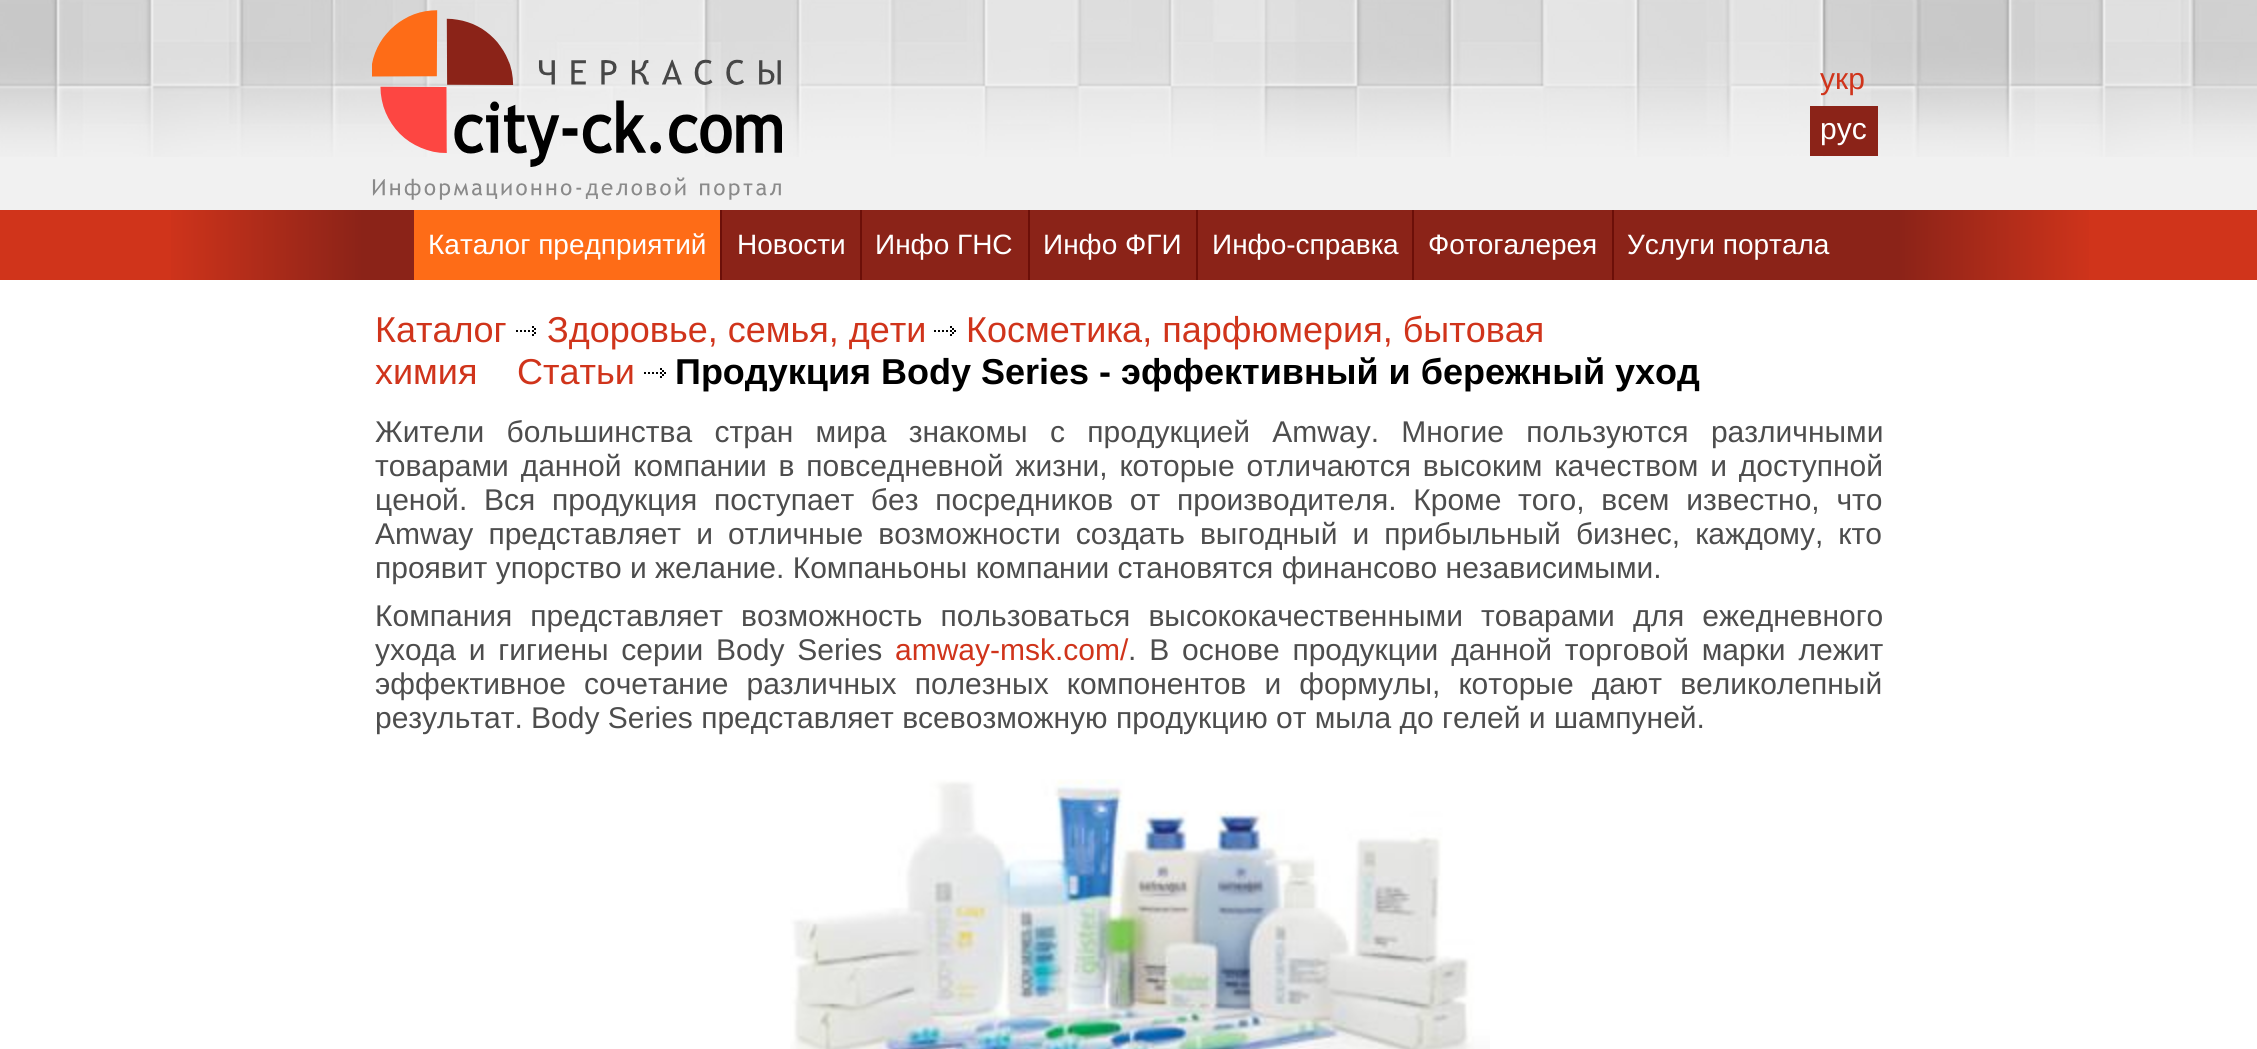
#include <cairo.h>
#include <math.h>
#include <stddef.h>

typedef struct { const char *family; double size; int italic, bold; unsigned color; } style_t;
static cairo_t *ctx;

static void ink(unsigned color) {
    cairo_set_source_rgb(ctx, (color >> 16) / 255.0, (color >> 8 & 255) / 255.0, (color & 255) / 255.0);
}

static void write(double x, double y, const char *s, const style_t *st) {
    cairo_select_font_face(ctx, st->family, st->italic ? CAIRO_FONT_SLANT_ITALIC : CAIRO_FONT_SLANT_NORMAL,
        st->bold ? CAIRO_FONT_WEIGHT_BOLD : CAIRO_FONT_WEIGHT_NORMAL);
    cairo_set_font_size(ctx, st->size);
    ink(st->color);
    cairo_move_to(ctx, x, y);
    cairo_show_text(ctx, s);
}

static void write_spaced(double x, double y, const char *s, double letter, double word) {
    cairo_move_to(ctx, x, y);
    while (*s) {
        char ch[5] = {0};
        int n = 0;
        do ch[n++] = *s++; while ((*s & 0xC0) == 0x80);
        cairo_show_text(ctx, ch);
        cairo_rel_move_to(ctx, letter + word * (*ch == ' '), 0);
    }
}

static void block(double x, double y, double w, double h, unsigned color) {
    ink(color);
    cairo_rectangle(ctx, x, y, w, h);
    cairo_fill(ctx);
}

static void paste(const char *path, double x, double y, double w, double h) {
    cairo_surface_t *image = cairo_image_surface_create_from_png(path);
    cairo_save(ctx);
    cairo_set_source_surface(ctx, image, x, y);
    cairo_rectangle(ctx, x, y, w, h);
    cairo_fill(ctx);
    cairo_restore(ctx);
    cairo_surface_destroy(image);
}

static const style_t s1 = {"Liberation Sans", 30, 0, 0, 0xd0341b};
static const style_t s2 = {"Liberation Sans", 30, 0, 0, 0xffffff};
static const style_t s3 = {"Liberation Sans", 28, 0, 0, 0xffffff};
static const style_t s4 = {"Liberation Sans", 36, 0, 0, 0xd0341b};
static const style_t s5 = {"Liberation Sans", 36, 0, 1, 0x000000};
static const style_t s6 = {"Liberation Sans", 30, 0, 0, 0x4d4d4d};

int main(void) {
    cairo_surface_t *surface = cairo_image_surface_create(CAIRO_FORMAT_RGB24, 2257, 1049);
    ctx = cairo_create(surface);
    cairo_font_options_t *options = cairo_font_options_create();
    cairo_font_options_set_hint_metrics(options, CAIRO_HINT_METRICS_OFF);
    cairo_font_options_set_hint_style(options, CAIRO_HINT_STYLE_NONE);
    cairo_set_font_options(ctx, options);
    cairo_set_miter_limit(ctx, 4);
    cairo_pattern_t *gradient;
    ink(0xffffff);
    cairo_paint(ctx);
    block(0, 157, 2257, 53, 0xf1f1f1);
    paste("pic1.png", 0, 0, 2257, 157);
    paste("pic2.png", 372, 10, 410, 190);
    write(1820, 89, "укр", &s1);
    block(1810, 106, 68, 50, 0x8b2318);
    write(1820, 139, "рус", &s2);
    block(0, 210, 2257, 70, 0xd0341b);
    block(362, 210, 1536, 70, 0x8b2318);
    gradient = cairo_pattern_create_linear(162, 245, 362, 245);
    cairo_pattern_add_color_stop_rgba(gradient, 0.01, 0.816, 0.204, 0.106, 1);
    cairo_pattern_add_color_stop_rgba(gradient, 1, 0.545, 0.137, 0.094, 1);
    cairo_set_source(ctx, gradient);
    cairo_pattern_destroy(gradient);
    cairo_rectangle(ctx, 171, 210, 191, 70);
    cairo_fill(ctx);
    block(720, 210, 2, 70, 0x6c0f08);
    block(414, 210, 306, 70, 0xfe6c17);
    write(428, 254, "Каталог предприятий", &s3);
    block(860, 210, 2, 70, 0x6c0f08);
    write(737, 254, "Новости", &s3);
    block(1028, 210, 2, 70, 0x6c0f08);
    write(875, 254, "Инфо ГНС", &s3);
    block(1196, 210, 2, 70, 0x6c0f08);
    write(1043, 254, "Инфо ФГИ", &s3);
    block(1412, 210, 2, 70, 0x6c0f08);
    write(1212, 254, "Инфо-справка", &s3);
    block(1612, 210, 2, 70, 0x6c0f08);
    write(1428, 254, "Фотогалерея", &s3);
    write(1627, 254, "Услуги портала", &s3);
    gradient = cairo_pattern_create_linear(1898, 245, 2098, 245);
    cairo_pattern_add_color_stop_rgba(gradient, 0, 0.545, 0.137, 0.094, 1);
    cairo_pattern_add_color_stop_rgba(gradient, 0.99, 0.816, 0.204, 0.106, 1);
    cairo_set_source(ctx, gradient);
    cairo_pattern_destroy(gradient);
    cairo_rectangle(ctx, 1898, 210, 191, 70);
    cairo_fill(ctx);
    write(375, 342, "Каталог", &s4);
    paste("pic3.png", 516, 326, 20, 10);
    write(547, 342, "Здоровье, семья, дети", &s4);
    paste("pic4.png", 934, 326, 22, 10);
    write(966, 342, "Косметика, парфюмерия, бытовая", &s4);
    write(375, 384, "химия", &s4);
    write(517, 384, "Статьи", &s4);
    paste("pic4.png", 644, 368, 22, 10);
    write(675, 384, "Продукция Body Series - эффективный и бережный уход", &s5);
    cairo_select_font_face(ctx, "Liberation Sans", CAIRO_FONT_SLANT_NORMAL, CAIRO_FONT_WEIGHT_NORMAL);
    cairo_set_font_size(ctx, 30);
    ink(0x4d4d4d);
    write_spaced(375, 442, "Жители большинства стран мира знакомы с продукцией Amway. Многие пользуются различными", 0, 14);
    write_spaced(375, 476, "товарами данной компании в повседневной жизни, которые отличаются высоким качеством и доступной", 0, 3.5);
    write_spaced(375, 510, "ценой. Вся продукция поступает без посредников от производителя. Кроме того, всем известно, что", 0, 8.4);
    write_spaced(375, 544, "Amway представляет и отличные возможности создать выгодный и прибыльный бизнес, каждому, кто", 0, 6.75);
    write(375, 578, "проявит упорство и желание. Компаньоны компании становятся финансово независимыми.", &s6);
    write_spaced(375, 626, "Компания представляет возможность пользоваться высококачественными товарами для ежедневного", 0, 9.75);
    write_spaced(375, 660, "ухода и гигиены серии Body Series", 0, 4.5);
    write(895, 660, "amway-msk.com/", &s1);
    ink(0x4d4d4d);
    write_spaced(1128, 660, ". В основе продукции данной торговой марки лежит", 0, 4.5);
    write_spaced(375, 694, "эффективное сочетание различных полезных компонентов и формулы, которые дают великолепный", 0, 9.75);
    write(375, 728, "результат. Body Series представляет всевозможную продукцию от мыла до гелей и шампуней.", &s6);
    paste("pic5.png", 790, 779, 700, 270);
    cairo_surface_write_to_png(surface, "screenshot.png");
    cairo_font_options_destroy(options);
    cairo_destroy(ctx);
    cairo_surface_destroy(surface);
    return 0;
}
